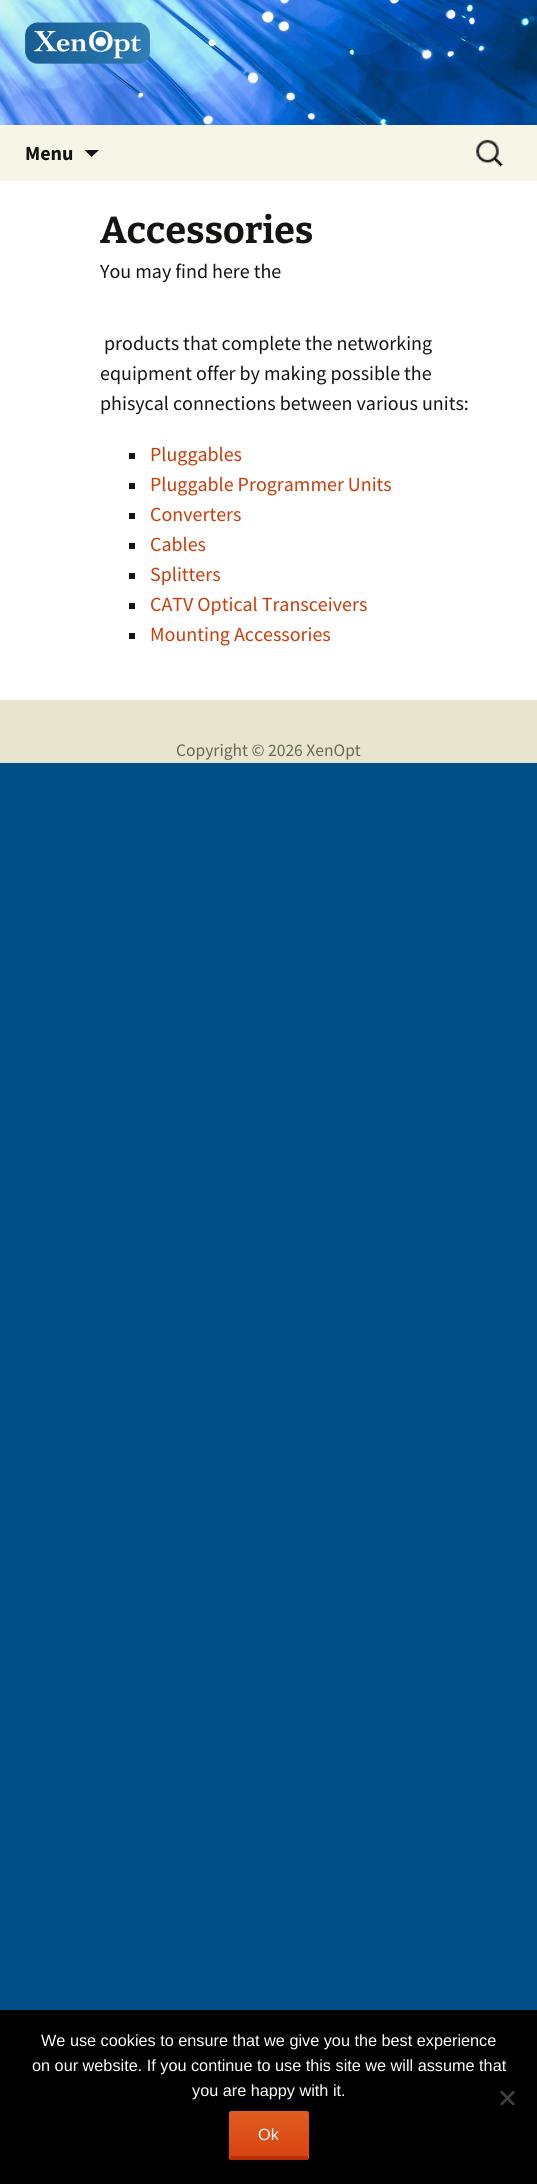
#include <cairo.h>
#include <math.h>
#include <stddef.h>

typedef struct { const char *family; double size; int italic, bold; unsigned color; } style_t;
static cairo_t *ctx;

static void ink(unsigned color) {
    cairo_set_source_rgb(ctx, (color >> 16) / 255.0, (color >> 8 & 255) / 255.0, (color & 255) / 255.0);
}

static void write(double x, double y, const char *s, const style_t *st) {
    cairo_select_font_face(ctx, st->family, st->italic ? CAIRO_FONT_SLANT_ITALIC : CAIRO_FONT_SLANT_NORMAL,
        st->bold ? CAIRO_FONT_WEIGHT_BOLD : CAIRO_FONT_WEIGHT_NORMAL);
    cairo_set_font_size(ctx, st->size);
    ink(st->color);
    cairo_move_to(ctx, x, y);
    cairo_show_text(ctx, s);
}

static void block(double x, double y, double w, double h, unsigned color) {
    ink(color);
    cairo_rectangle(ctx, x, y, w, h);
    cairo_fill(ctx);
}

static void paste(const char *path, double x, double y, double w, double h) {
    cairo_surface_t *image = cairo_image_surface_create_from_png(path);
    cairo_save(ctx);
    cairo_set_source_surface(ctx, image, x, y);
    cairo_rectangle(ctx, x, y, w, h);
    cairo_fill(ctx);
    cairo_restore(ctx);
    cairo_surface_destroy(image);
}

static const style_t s1 = {"Source Sans Pro", 20, 0, 1, 0x141412};
static const style_t s2 = {"Bitter Thin", 37.5, 0, 0, 0x141412};
static const style_t s3 = {"Source Sans Pro", 20, 0, 0, 0x141412};
static const style_t s4 = {"Source Sans Pro", 20, 0, 0, 0xca3c08};
static const style_t s5 = {"Source Sans Pro", 17.5, 0, 0, 0x686758};
static const style_t s6 = {"Liberation Sans", 16.25, 0, 0, 0xffffff};

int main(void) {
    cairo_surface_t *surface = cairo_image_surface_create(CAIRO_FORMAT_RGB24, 537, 2184);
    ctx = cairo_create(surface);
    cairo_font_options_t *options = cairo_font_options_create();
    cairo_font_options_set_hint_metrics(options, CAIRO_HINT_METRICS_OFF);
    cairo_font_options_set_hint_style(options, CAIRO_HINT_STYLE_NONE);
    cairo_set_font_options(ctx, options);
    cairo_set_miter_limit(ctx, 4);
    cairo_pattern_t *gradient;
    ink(0x005087);
    cairo_paint(ctx);
    block(0, 181, 537, 519, 0xffffff);
    paste("pic1.png", 0, 0, 537, 125);
    paste("pic2.png", 25, 22, 125, 42);
    block(0, 125, 537, 56, 0xf7f5e7);
    write(25, 160, "Menu", &s1);
    cairo_new_path(ctx);
    cairo_move_to(ctx, 84.5, 150);
    cairo_line_to(ctx, 91.5, 157);
    cairo_line_to(ctx, 99, 150);
    cairo_close_path(ctx);
    cairo_fill(ctx);
    paste("pic3.png", 476, 139, 27, 28);
    write(100, 243, "Accessories", &s2);
    write(100, 278, "You may find here the", &s3);
    write(104, 350, "products that complete the networking", &s3);
    write(100, 380, "equipment offer by making possible the", &s3);
    write(100, 410, "phisycal connections between various units:", &s3);
    block(129, 453, 6, 6, 0x141412);
    write(150, 461, "Pluggables", &s4);
    block(129, 483, 6, 6, 0x141412);
    write(150, 491, "Pluggable Programmer Units", &s4);
    block(129, 513, 6, 6, 0x141412);
    write(150, 521, "Converters", &s4);
    block(129, 543, 6, 6, 0x141412);
    write(150, 551, "Cables", &s4);
    block(129, 573, 6, 6, 0x141412);
    write(150, 581, "Splitters", &s4);
    block(129, 603, 6, 6, 0x141412);
    write(150, 611, "CATV Optical Transceivers", &s4);
    block(129, 633, 6, 6, 0x141412);
    write(150, 641, "Mounting Accessories", &s4);
    block(0, 700, 537, 63, 0xe8e5ce);
    write(176, 756, "Copyright © 2026 XenOpt", &s5);
    block(0, 2010, 537, 174, 0x000000);
    write(41, 2046, "We use cookies to ensure that we give you the best experience", &s6);
    write(32, 2071, "on our website. If you continue to use this site we will assume that", &s6);
    write(192, 2096, "you are happy with it.", &s6);
    ink(0x404040);
    cairo_new_path(ctx);
    cairo_move_to(ctx, 513, 2090.5);
    cairo_line_to(ctx, 515, 2092.5);
    cairo_line_to(ctx, 502, 2105.5);
    cairo_line_to(ctx, 500, 2104);
    cairo_close_path(ctx);
    cairo_fill(ctx);
    cairo_new_path(ctx);
    cairo_move_to(ctx, 500, 2092.5);
    cairo_line_to(ctx, 502, 2090.5);
    cairo_line_to(ctx, 515, 2104);
    cairo_line_to(ctx, 513, 2105.5);
    cairo_close_path(ctx);
    cairo_fill(ctx);
    gradient = cairo_pattern_create_linear(269, 2111, 269, 2156);
    cairo_pattern_add_color_stop_rgba(gradient, 0, 0.878, 0.365, 0.133, 1);
    cairo_pattern_add_color_stop_rgba(gradient, 1, 0.851, 0.267, 0.071, 1);
    cairo_set_source(ctx, gradient);
    cairo_pattern_destroy(gradient);
    cairo_new_path(ctx);
    cairo_move_to(ctx, 231.5, 2111);
    cairo_line_to(ctx, 306.5, 2111);
    cairo_curve_to(ctx, 308, 2111, 309, 2112, 309, 2113.5);
    cairo_line_to(ctx, 309, 2156);
    cairo_line_to(ctx, 229, 2156);
    cairo_line_to(ctx, 229, 2113.5);
    cairo_curve_to(ctx, 229, 2112, 230, 2111, 231.5, 2111);
    cairo_close_path(ctx);
    cairo_fill(ctx);
    gradient = cairo_pattern_create_linear(269, 2156, 269, 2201);
    cairo_pattern_add_color_stop_rgba(gradient, 0, 0.878, 0.365, 0.133, 1);
    cairo_pattern_add_color_stop_rgba(gradient, 1, 0.851, 0.267, 0.071, 1);
    cairo_set_source(ctx, gradient);
    cairo_pattern_destroy(gradient);
    cairo_new_path(ctx);
    cairo_move_to(ctx, 229, 2156);
    cairo_line_to(ctx, 309, 2156);
    cairo_line_to(ctx, 309, 2157.5);
    cairo_curve_to(ctx, 309, 2159, 308, 2160, 306.5, 2160);
    cairo_line_to(ctx, 231.5, 2160);
    cairo_curve_to(ctx, 230, 2160, 229, 2159, 229, 2157.5);
    cairo_close_path(ctx);
    cairo_fill(ctx);
    block(230, 2156, 78, 4, 0xb93207);
    write(258, 2140, "Ok", &s6);
    cairo_surface_write_to_png(surface, "screenshot.png");
    cairo_font_options_destroy(options);
    cairo_destroy(ctx);
    cairo_surface_destroy(surface);
    return 0;
}
